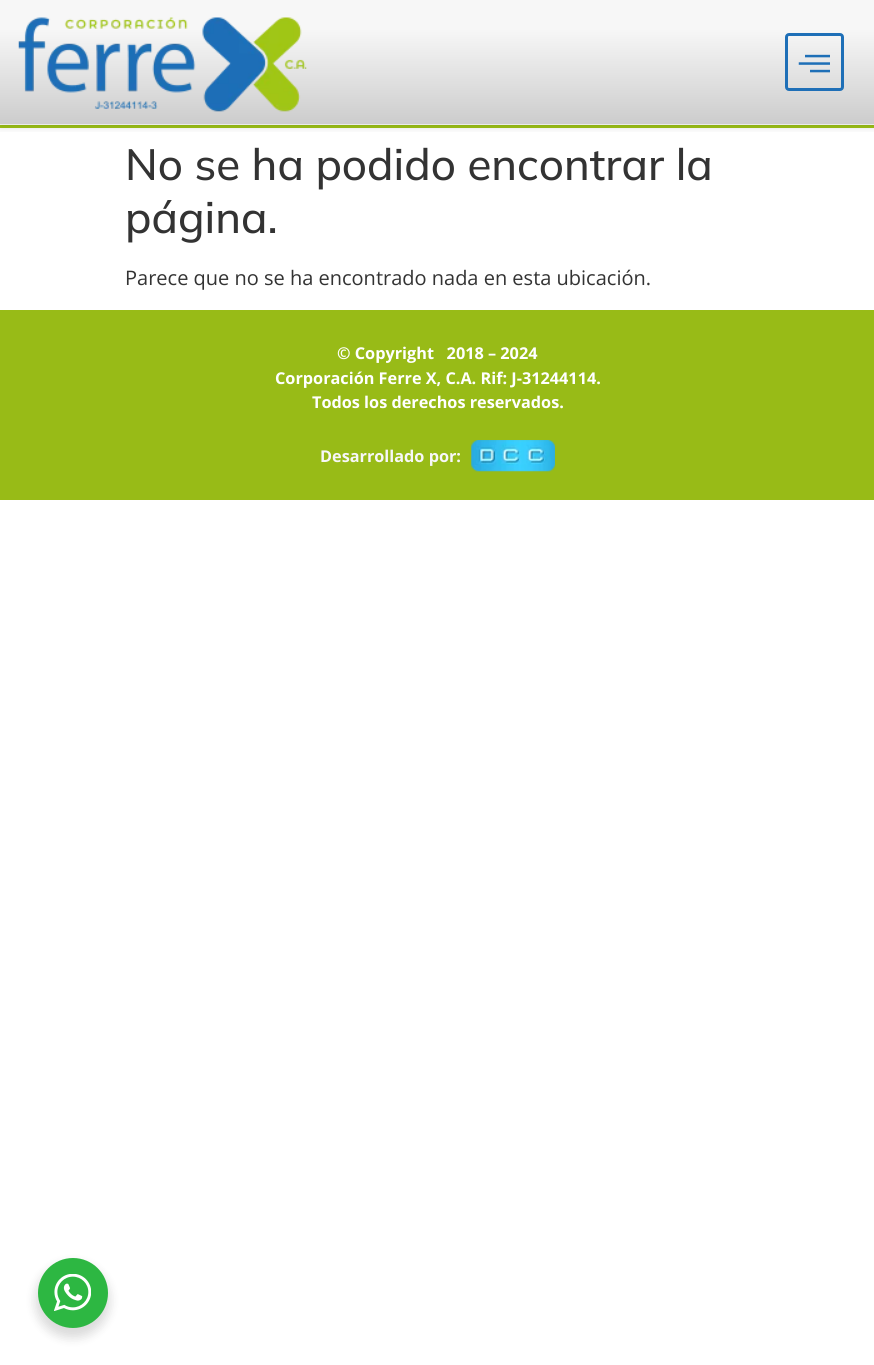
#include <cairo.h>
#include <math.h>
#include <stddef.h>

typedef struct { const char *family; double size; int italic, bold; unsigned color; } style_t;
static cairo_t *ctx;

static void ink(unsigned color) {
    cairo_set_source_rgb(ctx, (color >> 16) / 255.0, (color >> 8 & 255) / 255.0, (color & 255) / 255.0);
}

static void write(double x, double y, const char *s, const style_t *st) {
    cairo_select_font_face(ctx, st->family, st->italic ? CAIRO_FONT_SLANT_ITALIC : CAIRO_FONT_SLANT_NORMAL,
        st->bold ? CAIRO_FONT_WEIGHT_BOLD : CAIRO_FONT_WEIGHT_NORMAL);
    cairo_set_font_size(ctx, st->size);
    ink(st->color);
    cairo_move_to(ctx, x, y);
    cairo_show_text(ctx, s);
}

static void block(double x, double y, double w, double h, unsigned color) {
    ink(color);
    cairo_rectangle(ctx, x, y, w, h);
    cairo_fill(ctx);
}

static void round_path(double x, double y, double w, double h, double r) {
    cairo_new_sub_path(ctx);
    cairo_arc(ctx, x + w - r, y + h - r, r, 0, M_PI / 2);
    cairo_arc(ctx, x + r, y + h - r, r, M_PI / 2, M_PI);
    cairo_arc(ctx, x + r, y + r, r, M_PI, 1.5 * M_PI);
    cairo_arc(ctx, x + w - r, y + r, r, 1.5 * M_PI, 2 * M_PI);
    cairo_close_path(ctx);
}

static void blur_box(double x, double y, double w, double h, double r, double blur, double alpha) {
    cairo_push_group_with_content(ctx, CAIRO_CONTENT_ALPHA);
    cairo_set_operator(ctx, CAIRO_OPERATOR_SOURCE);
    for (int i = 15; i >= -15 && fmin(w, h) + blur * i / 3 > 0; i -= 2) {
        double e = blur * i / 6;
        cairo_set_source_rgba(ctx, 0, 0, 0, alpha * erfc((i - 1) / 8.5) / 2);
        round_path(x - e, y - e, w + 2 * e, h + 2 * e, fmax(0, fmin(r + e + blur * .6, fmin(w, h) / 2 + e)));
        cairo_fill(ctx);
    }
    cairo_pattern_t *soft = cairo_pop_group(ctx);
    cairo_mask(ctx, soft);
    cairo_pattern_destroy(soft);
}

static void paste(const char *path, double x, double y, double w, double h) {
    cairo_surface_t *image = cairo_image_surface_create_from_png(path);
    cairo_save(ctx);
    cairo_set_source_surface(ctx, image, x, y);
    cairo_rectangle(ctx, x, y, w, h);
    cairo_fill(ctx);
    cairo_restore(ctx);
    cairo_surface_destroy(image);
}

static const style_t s1 = {"Mulish Medium", 43.75, 0, 0, 0x333333};
static const style_t s2 = {"Open Sans", 20, 0, 0, 0x333333};
static const style_t s3 = {"Open Sans", 16.25, 0, 1, 0xffffff};
static const style_t s4 = {"Open Sans", 16.25, 0, 1, 0xf7f7f7};

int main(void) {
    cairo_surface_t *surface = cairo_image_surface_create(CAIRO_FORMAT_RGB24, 874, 1365);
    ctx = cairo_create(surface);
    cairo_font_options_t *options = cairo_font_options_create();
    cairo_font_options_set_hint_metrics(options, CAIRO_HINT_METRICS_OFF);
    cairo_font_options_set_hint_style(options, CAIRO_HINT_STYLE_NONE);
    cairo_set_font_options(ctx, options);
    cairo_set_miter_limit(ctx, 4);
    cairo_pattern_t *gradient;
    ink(0xffffff);
    cairo_paint(ctx);
    gradient = cairo_pattern_create_linear(438, 0, 438, 125);
    cairo_pattern_add_color_stop_rgba(gradient, 0.23, 0.969, 0.969, 0.969, 1);
    cairo_pattern_add_color_stop_rgba(gradient, 1, 0.8, 0.8, 0.8, 1);
    cairo_set_source(ctx, gradient);
    cairo_pattern_destroy(gradient);
    cairo_rectangle(ctx, 0, 0, 874, 124);
    cairo_fill(ctx);
    block(0, 125, 874, 3, 0xa0c516);
    cairo_save(ctx);
    cairo_rectangle(ctx, 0, 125, 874, 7);
    cairo_clip(ctx);
    ink(0x000000);
    blur_box(0, 0, 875, 125, 0, 5, 0.22);
    cairo_restore(ctx);
    block(0, 124, 874, 1, 0xeaeaea);
    paste("pic1.png", 18, 17, 289, 95);
    round_path(786.5, 34.5, 56, 55, 2.5);
    ink(0x1e6fb7);
    cairo_set_line_width(ctx, 3);
    cairo_stroke(ctx);
    paste("pic2.png", 798, 54, 32, 19);
    write(125, 180, "No se ha podido encontrar la", &s1);
    write(125, 233, "página.", &s1);
    write(125, 285, "Parece que no se ha encontrado nada en esta ubicación.", &s2);
    block(0, 310, 874, 190, 0x98bb17);
    write(337, 359, "© Copyright   2018 – 2024", &s3);
    write(275, 384, "Corporación Ferre X, C.A. Rif: J-31244114.", &s3);
    write(312, 408, "Todos los derechos reservados.", &s3);
    write(320, 462, "Desarrollado por:", &s4);
    paste("pic3.png", 471, 440, 84, 32);
    ink(0x000000);
    blur_box(35, 1263, 75, 75, 37.5, 5, 0.14);
    ink(0x2db742);
    cairo_arc(ctx, 73, 1293, 35, 0, 2 * M_PI);
    cairo_fill(ctx);
    paste("pic4.png", 54, 1274, 37, 37);
    cairo_surface_write_to_png(surface, "screenshot.png");
    cairo_font_options_destroy(options);
    cairo_destroy(ctx);
    cairo_surface_destroy(surface);
    return 0;
}
